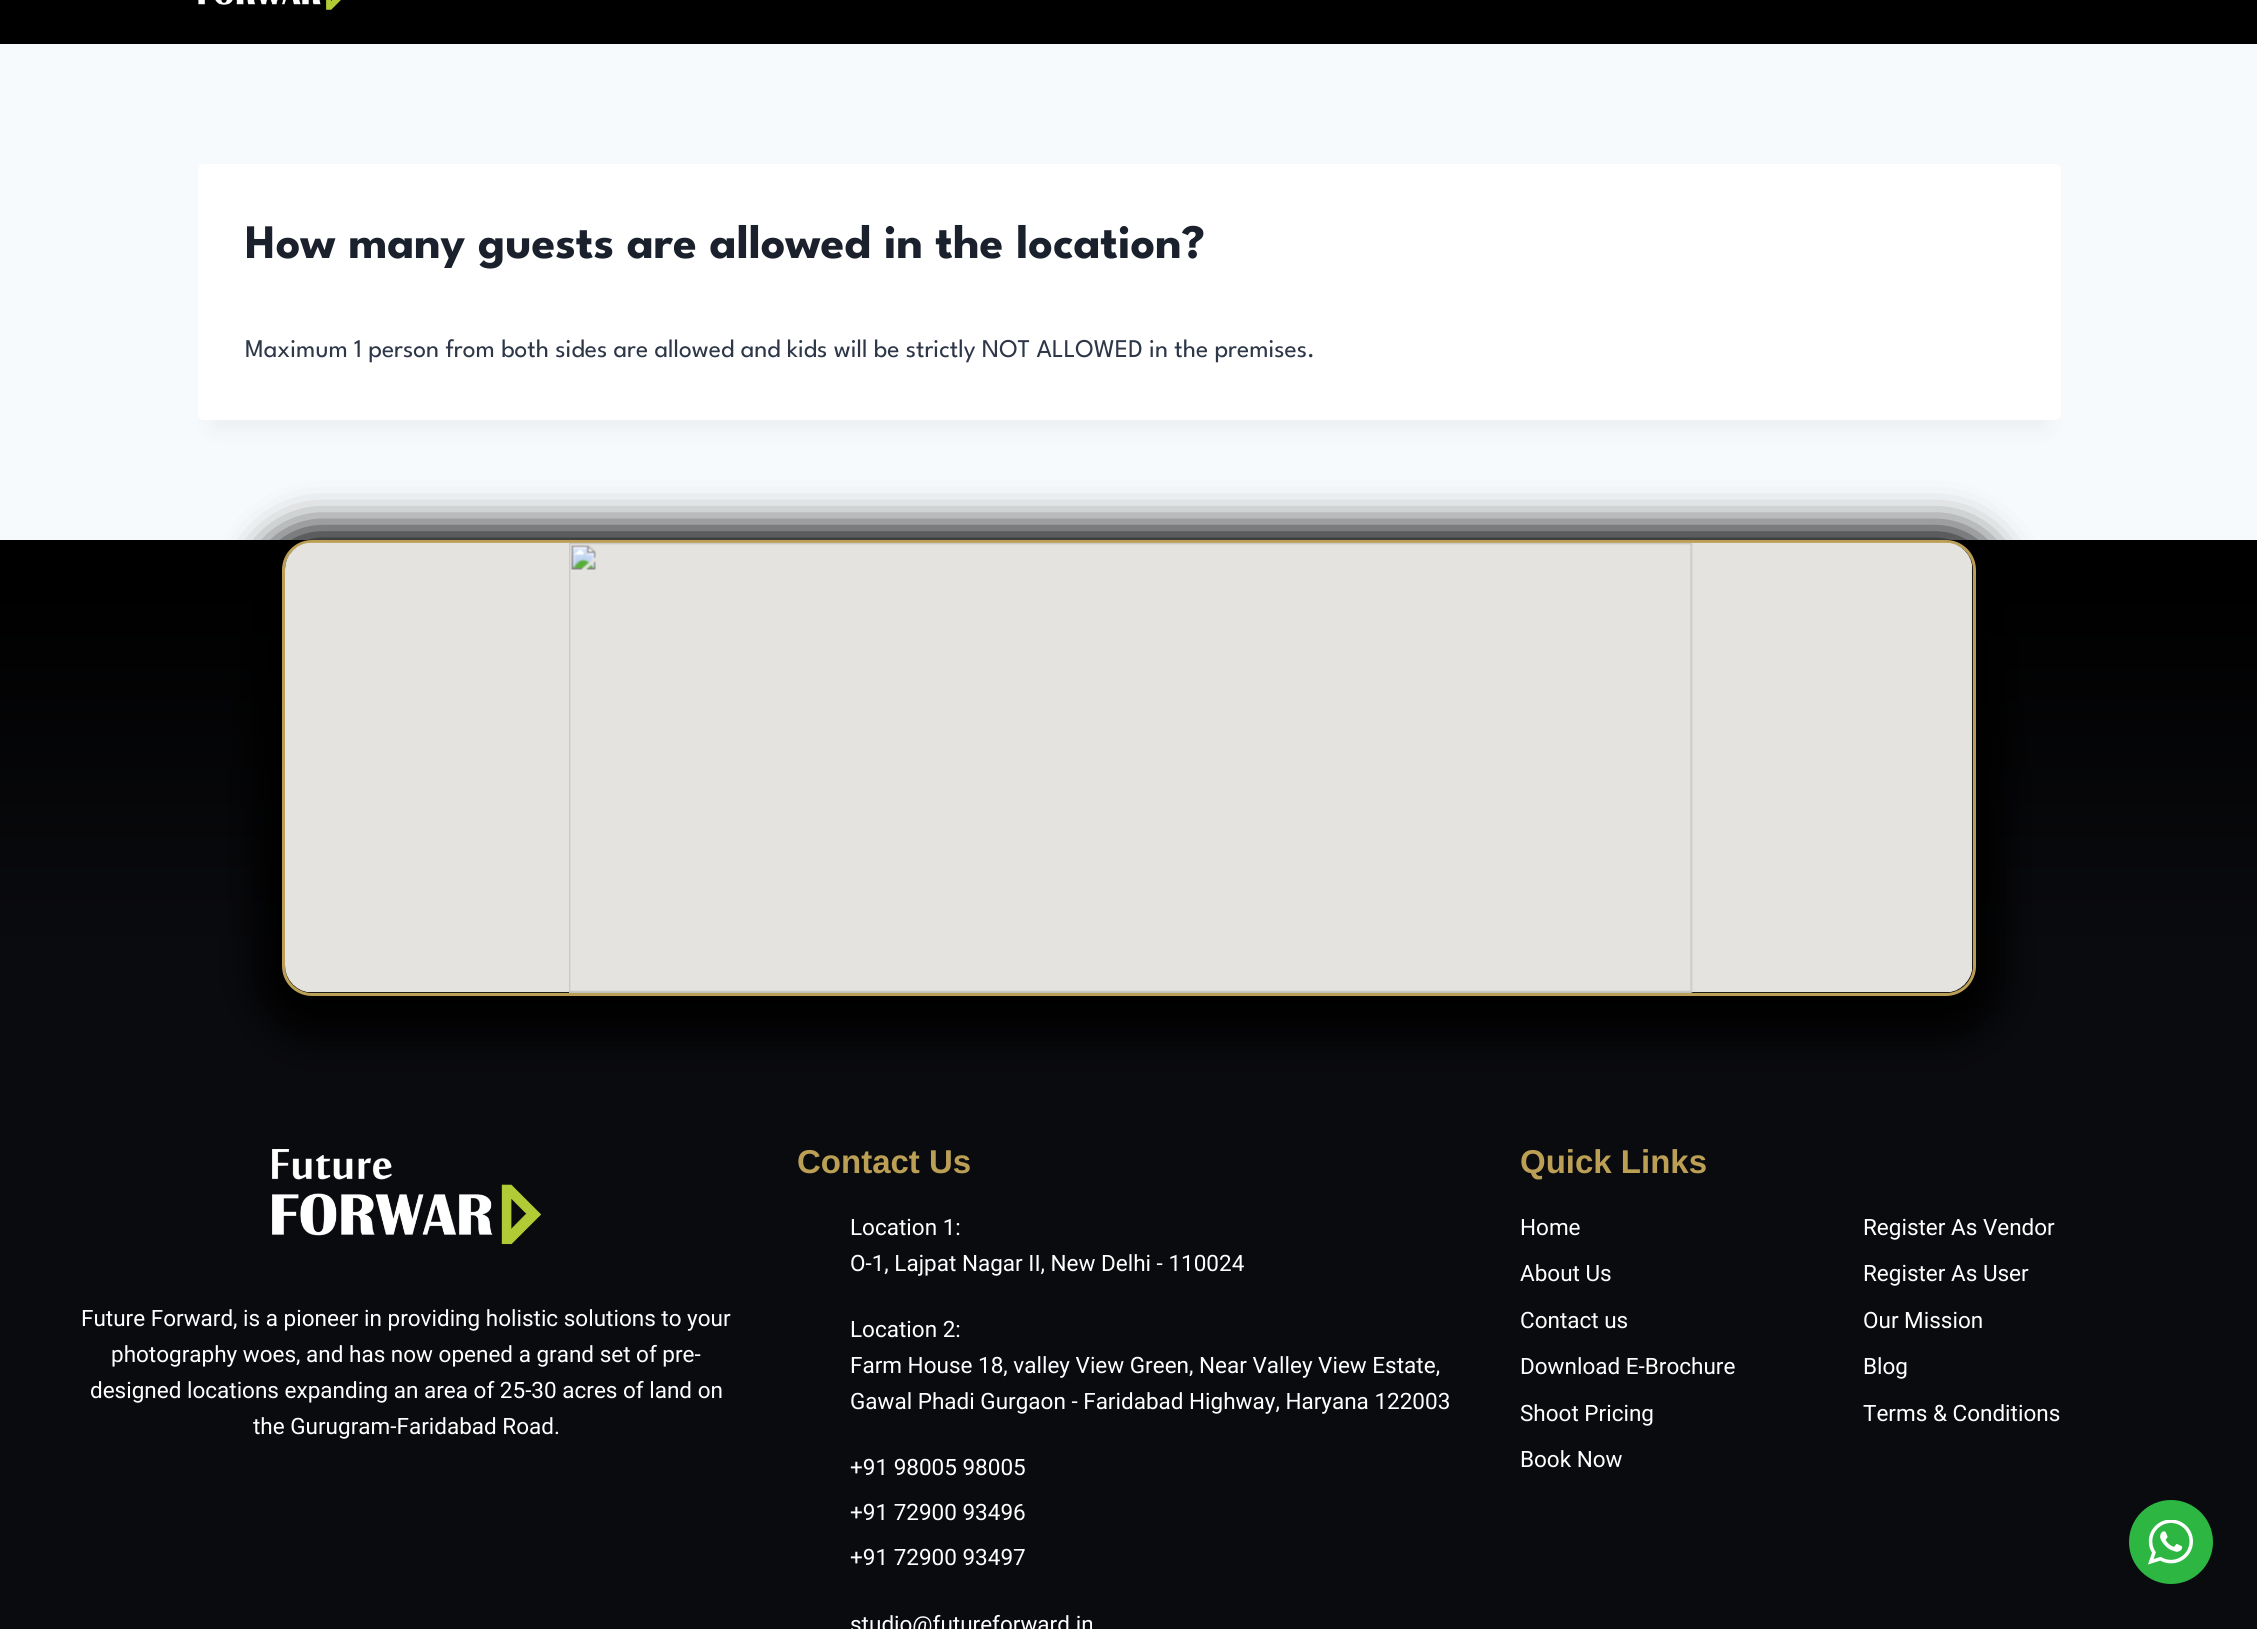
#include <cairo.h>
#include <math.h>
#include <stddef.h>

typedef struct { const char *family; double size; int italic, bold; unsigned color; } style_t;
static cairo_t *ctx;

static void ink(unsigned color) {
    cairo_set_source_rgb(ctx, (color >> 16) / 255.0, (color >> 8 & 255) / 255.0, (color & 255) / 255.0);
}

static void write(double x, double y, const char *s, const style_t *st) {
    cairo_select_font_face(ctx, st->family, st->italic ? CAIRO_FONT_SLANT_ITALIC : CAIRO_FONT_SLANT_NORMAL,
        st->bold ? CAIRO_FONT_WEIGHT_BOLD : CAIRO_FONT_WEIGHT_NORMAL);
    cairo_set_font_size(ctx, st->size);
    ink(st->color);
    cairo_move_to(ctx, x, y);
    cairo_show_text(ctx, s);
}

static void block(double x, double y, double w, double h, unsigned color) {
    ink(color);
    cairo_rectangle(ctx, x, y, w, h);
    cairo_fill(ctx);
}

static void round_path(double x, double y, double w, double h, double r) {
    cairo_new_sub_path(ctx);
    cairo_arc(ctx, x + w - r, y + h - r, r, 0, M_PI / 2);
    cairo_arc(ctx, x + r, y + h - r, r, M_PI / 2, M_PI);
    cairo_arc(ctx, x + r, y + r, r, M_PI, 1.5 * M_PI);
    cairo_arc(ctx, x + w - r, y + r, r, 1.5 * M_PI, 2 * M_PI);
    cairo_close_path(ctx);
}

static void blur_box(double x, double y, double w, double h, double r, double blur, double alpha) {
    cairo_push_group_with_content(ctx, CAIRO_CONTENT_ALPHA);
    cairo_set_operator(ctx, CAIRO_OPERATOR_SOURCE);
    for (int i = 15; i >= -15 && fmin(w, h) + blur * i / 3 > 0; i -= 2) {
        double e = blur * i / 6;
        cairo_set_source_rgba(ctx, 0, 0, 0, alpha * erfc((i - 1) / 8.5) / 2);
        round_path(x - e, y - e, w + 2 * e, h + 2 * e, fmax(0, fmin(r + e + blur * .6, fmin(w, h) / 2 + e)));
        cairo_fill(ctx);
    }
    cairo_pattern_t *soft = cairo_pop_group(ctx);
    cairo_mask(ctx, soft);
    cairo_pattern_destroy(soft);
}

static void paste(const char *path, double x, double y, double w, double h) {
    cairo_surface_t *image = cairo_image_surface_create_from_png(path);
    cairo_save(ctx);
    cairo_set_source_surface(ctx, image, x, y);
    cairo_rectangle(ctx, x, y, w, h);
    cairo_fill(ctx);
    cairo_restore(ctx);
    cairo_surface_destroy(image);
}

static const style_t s1 = {"League Spartan", 48, 0, 1, 0x1a202c};
static const style_t s2 = {"League Spartan", 25.5, 0, 0, 0x2d3748};
static const style_t s3 = {"Roboto", 22.5, 0, 0, 0xffffff};
static const style_t s4 = {"Liberation Sans", 33, 0, 1, 0xbb9f55};

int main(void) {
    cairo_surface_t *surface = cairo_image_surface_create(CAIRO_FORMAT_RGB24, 2257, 1629);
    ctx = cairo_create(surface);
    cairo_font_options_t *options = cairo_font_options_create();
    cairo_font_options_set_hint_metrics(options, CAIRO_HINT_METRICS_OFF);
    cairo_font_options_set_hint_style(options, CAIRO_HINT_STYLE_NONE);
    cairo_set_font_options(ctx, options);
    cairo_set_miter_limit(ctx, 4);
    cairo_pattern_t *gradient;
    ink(0xf7fafc);
    cairo_paint(ctx);
    block(0, 0, 2257, 44, 0x000000);
    paste("pic1.png", 198, 0, 143, 10);
    ink(0x000000);
    blur_box(213, 201, 1833, 227, 0, 11, 0.05);
    ink(0xffffff);
    round_path(198, 164, 1863, 256, 6);
    cairo_fill(ctx);
    write(245, 258, "How many guests are allowed in the location?", &s1);
    write(245, 357, "Maximum 1 person from both sides are allowed and kids will be strictly NOT ALLOWED in the premises.", &s2);
    gradient = cairo_pattern_create_linear(1129, 540, 1129, 996);
    cairo_pattern_add_color_stop_rgba(gradient, 0.1, 0, 0, 0, 1);
    cairo_pattern_add_color_stop_rgba(gradient, 0.9, 0.039, 0.043, 0.059, 1);
    cairo_set_source(ctx, gradient);
    cairo_pattern_destroy(gradient);
    cairo_rectangle(ctx, 0, 540, 2257, 456);
    cairo_fill(ctx);
    block(0, 996, 2257, 633, 0x0a0b0f);
    ink(0x000000);
    blur_box(255, 528, 1748, 510, 57, 19, 1);
    round_path(283.5, 541.5, 1691, 453, 28.5);
    ink(0xbb9f55);
    cairo_set_line_width(ctx, 3);
    cairo_stroke(ctx);
    paste("pic2.png", 285, 542, 1688, 451);
    paste("pic3.png", 272, 1149, 269, 96);
    write(81, 1326, "Future Forward, is a pioneer in providing holistic solutions to your", &s3);
    write(111, 1362, "photography woes, and has now opened a grand set of pre-", &s3);
    write(90, 1398, "designed locations expanding an area of 25-30 acres of land on", &s3);
    write(253, 1434, "the Gurugram-Faridabad Road.", &s3);
    write(797, 1173, "Contact Us", &s4);
    write(850, 1235, "Location 1:", &s3);
    write(850, 1271, "O-1, Lajpat Nagar II, New Delhi - 110024", &s3);
    write(850, 1337, "Location 2:", &s3);
    write(850, 1373, "Farm House 18, valley View Green, Near Valley View Estate,", &s3);
    write(850, 1409, "Gawal Phadi Gurgaon - Faridabad Highway, Haryana 122003", &s3);
    write(850, 1475, "+91 98005 98005", &s3);
    write(850, 1520, "+91 72900 93496", &s3);
    write(850, 1565, "+91 72900 93497", &s3);
    write(850, 1632, "studio@futureforward.in", &s3);
    write(1520, 1173, "Quick Links", &s4);
    write(1520, 1235, "Home", &s3);
    write(1520, 1281, "About Us", &s3);
    write(1520, 1328, "Contact us", &s3);
    write(1520, 1374, "Download E-Brochure", &s3);
    write(1520, 1421, "Shoot Pricing", &s3);
    write(1520, 1467, "Book Now", &s3);
    write(1863, 1235, "Register As Vendor", &s3);
    write(1863, 1281, "Register As User", &s3);
    write(1863, 1328, "Our Mission", &s3);
    write(1863, 1374, "Blog", &s3);
    write(1863, 1421, "Terms & Conditions", &s3);
    ink(0x2db742);
    cairo_new_path(ctx);
    cairo_arc(ctx, 2171, 1542, 42, 0, 2 * M_PI);
    cairo_fill(ctx);
    paste("pic4.png", 2148, 1520, 45, 45);
    cairo_surface_write_to_png(surface, "screenshot.png");
    cairo_font_options_destroy(options);
    cairo_destroy(ctx);
    cairo_surface_destroy(surface);
    return 0;
}
